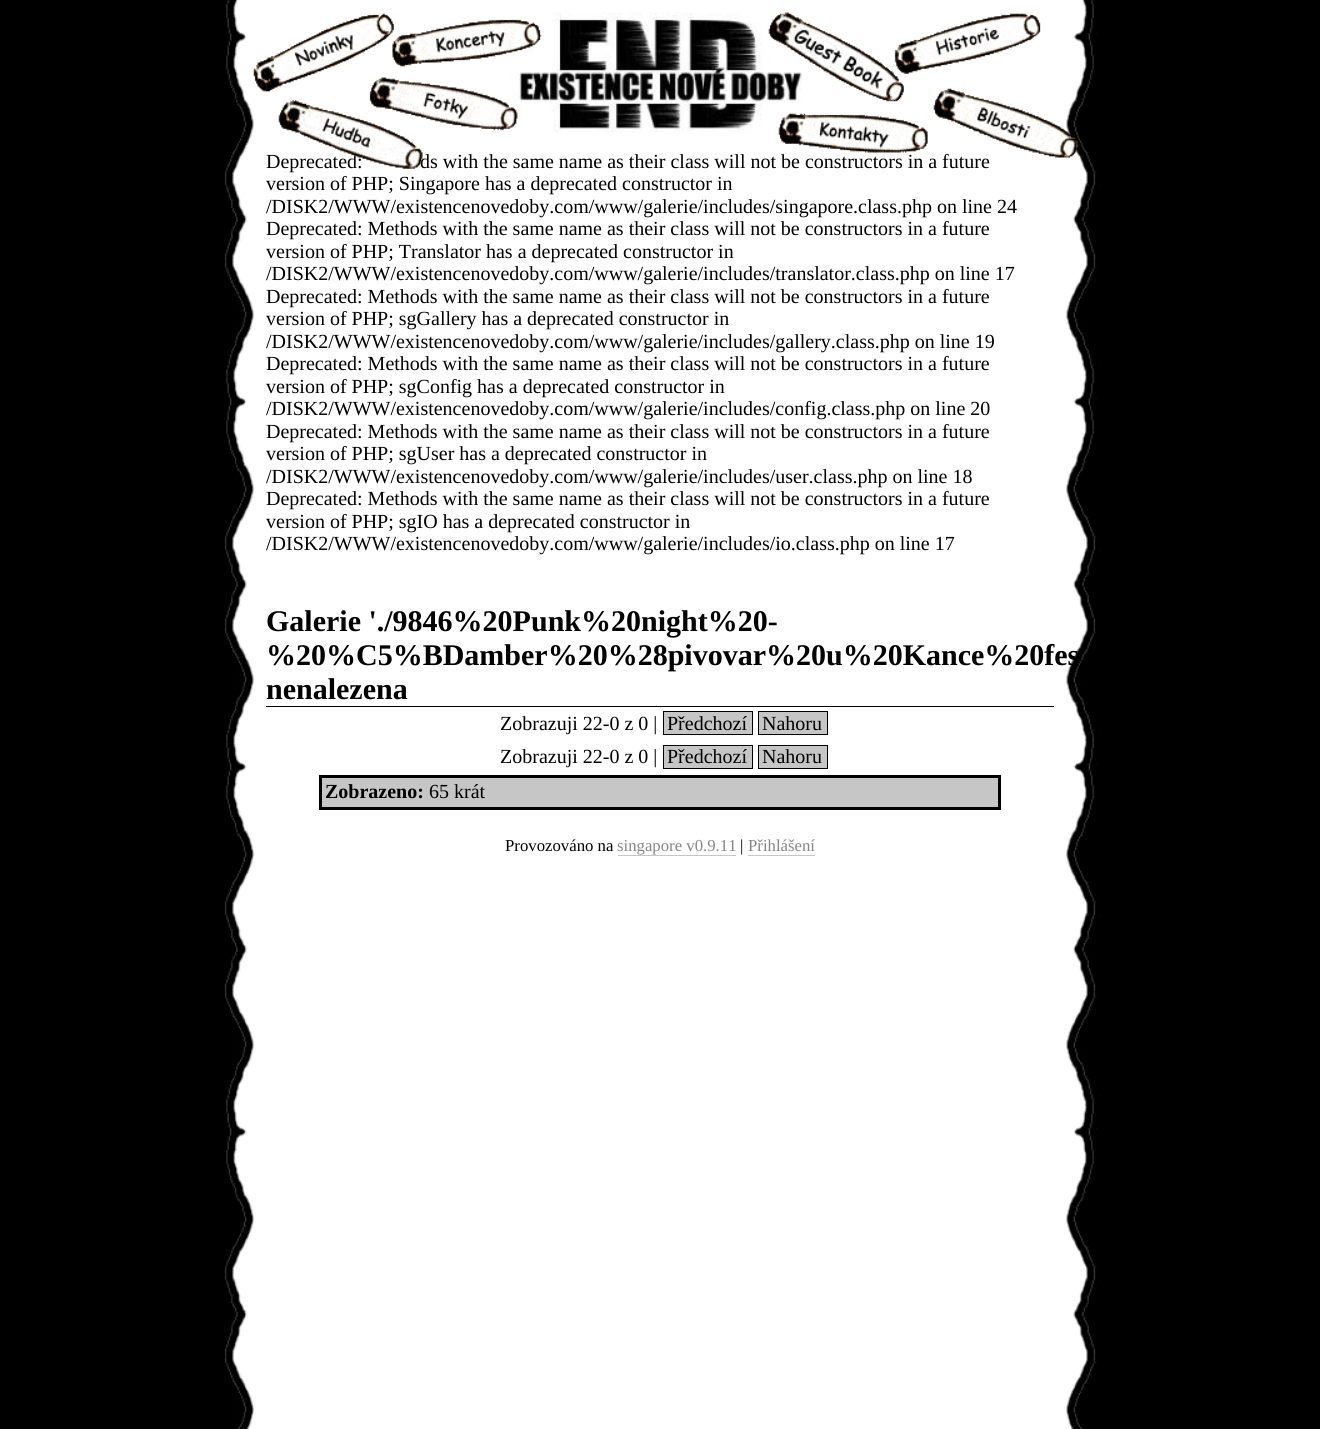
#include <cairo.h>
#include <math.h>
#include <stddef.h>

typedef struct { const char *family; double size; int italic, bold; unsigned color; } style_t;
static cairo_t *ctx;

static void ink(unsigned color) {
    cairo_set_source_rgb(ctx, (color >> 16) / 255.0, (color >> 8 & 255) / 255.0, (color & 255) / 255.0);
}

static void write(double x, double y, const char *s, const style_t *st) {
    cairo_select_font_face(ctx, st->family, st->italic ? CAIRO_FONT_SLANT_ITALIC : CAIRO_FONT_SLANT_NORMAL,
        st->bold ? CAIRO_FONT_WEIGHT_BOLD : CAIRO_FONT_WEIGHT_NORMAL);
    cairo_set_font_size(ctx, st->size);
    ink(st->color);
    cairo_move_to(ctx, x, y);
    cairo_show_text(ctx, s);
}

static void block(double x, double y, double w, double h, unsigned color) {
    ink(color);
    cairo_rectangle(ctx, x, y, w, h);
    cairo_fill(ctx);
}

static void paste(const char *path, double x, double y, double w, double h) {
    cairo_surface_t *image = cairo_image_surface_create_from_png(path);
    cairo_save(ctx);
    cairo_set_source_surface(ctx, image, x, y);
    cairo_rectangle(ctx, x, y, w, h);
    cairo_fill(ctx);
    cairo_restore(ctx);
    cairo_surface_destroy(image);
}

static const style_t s1 = {"Liberation Serif", 20, 0, 0, 0x000000};
static const style_t s2 = {"Liberation Serif", 30, 0, 1, 0x000000};
static const style_t s3 = {"Liberation Serif", 20, 0, 1, 0x000000};
static const style_t s4 = {"Liberation Serif", 16.75, 0, 0, 0x000000};
static const style_t s5 = {"Liberation Serif", 16.75, 0, 0, 0x868686};

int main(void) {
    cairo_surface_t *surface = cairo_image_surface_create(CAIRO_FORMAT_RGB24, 1320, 1429);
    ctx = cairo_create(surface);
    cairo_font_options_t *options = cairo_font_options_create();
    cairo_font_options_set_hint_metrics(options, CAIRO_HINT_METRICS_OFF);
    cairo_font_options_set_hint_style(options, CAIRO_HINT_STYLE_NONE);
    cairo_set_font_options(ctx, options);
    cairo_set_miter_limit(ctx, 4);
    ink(0x000000);
    cairo_paint(ctx);
    paste("pic1.png", 224, 0, 877, 1429);
    paste("pic2.png", 253, 13, 141, 79);
    paste("pic10.png", 501, 12, 301, 121);
    paste("pic3.png", 392, 19, 150, 48);
    paste("pic4.png", 768, 12, 136, 90);
    paste("pic5.png", 894, 13, 147, 61);
    write(266, 168, "Deprecated:", &s1);
    write(420, 168, "ds with the same name as their class will not be constructors in a future", &s1);
    paste("pic6.png", 278, 100, 145, 69);
    paste("pic7.png", 369, 77, 149, 54);
    paste("pic8.png", 778, 113, 150, 40);
    paste("pic9.png", 933, 88, 145, 70);
    write(266, 190, "version of PHP; Singapore has a deprecated constructor in", &s1);
    write(266, 213, "/DISK2/WWW/existencenovedoby.com/www/galerie/includes/singapore.class.php on line 24", &s1);
    write(266, 235, "Deprecated: Methods with the same name as their class will not be constructors in a future", &s1);
    write(266, 258, "version of PHP; Translator has a deprecated constructor in", &s1);
    write(266, 280, "/DISK2/WWW/existencenovedoby.com/www/galerie/includes/translator.class.php on line 17", &s1);
    write(266, 303, "Deprecated: Methods with the same name as their class will not be constructors in a future", &s1);
    write(266, 325, "version of PHP; sgGallery has a deprecated constructor in", &s1);
    write(266, 348, "/DISK2/WWW/existencenovedoby.com/www/galerie/includes/gallery.class.php on line 19", &s1);
    write(266, 370, "Deprecated: Methods with the same name as their class will not be constructors in a future", &s1);
    write(266, 393, "version of PHP; sgConfig has a deprecated constructor in", &s1);
    write(266, 415, "/DISK2/WWW/existencenovedoby.com/www/galerie/includes/config.class.php on line 20", &s1);
    write(266, 438, "Deprecated: Methods with the same name as their class will not be constructors in a future", &s1);
    write(266, 460, "version of PHP; sgUser has a deprecated constructor in", &s1);
    write(266, 483, "/DISK2/WWW/existencenovedoby.com/www/galerie/includes/user.class.php on line 18", &s1);
    write(266, 505, "Deprecated: Methods with the same name as their class will not be constructors in a future", &s1);
    write(266, 528, "version of PHP; sgIO has a deprecated constructor in", &s1);
    write(266, 550, "/DISK2/WWW/existencenovedoby.com/www/galerie/includes/io.class.php on line 17", &s1);
    block(266, 706, 788, 1, 0x000000);
    write(266, 631, "Galerie './9846%20Punk%20night%20-", &s2);
    write(266, 665, "%20%C5%BDamber%20%28pivovar%20u%20Kance%20fes", &s2);
    write(266, 699, "nenalezena", &s2);
    write(500, 730, "Zobrazuji 22-0 z 0 |", &s1);
    ink(0xc6c6c6);
    cairo_rectangle(ctx, 663.5, 711.5, 89, 23);
    cairo_fill_preserve(ctx);
    ink(0x000000);
    cairo_set_line_width(ctx, 1);
    cairo_stroke(ctx);
    write(667, 730, "Předchozí", &s1);
    ink(0xc6c6c6);
    cairo_rectangle(ctx, 758.5, 711.5, 69, 23);
    cairo_fill_preserve(ctx);
    ink(0x000000);
    cairo_stroke(ctx);
    write(762, 730, "Nahoru", &s1);
    write(500, 763, "Zobrazuji 22-0 z 0 |", &s1);
    ink(0xc6c6c6);
    cairo_rectangle(ctx, 663.5, 745.5, 89, 23);
    cairo_fill_preserve(ctx);
    ink(0x000000);
    cairo_stroke(ctx);
    write(667, 763, "Předchozí", &s1);
    ink(0xc6c6c6);
    cairo_rectangle(ctx, 758.5, 745.5, 69, 23);
    cairo_fill_preserve(ctx);
    ink(0x000000);
    cairo_stroke(ctx);
    write(762, 763, "Nahoru", &s1);
    ink(0xc6c6c6);
    cairo_rectangle(ctx, 320.5, 776.5, 679, 32);
    cairo_fill_preserve(ctx);
    ink(0x000000);
    cairo_set_line_width(ctx, 3);
    cairo_stroke(ctx);
    write(325, 798, "Zobrazeno:", &s3);
    write(429, 798, "65 krát", &s1);
    write(505, 851, "Provozováno na", &s4);
    write(617, 851, "singapore v0.9.11", &s5);
    block(618, 855, 118, 1, 0xc6c6c6);
    write(740, 851, "|", &s4);
    write(748, 851, "Přihlášení", &s5);
    block(748, 855, 67, 1, 0xc6c6c6);
    cairo_surface_write_to_png(surface, "screenshot.png");
    cairo_font_options_destroy(options);
    cairo_destroy(ctx);
    cairo_surface_destroy(surface);
    return 0;
}
